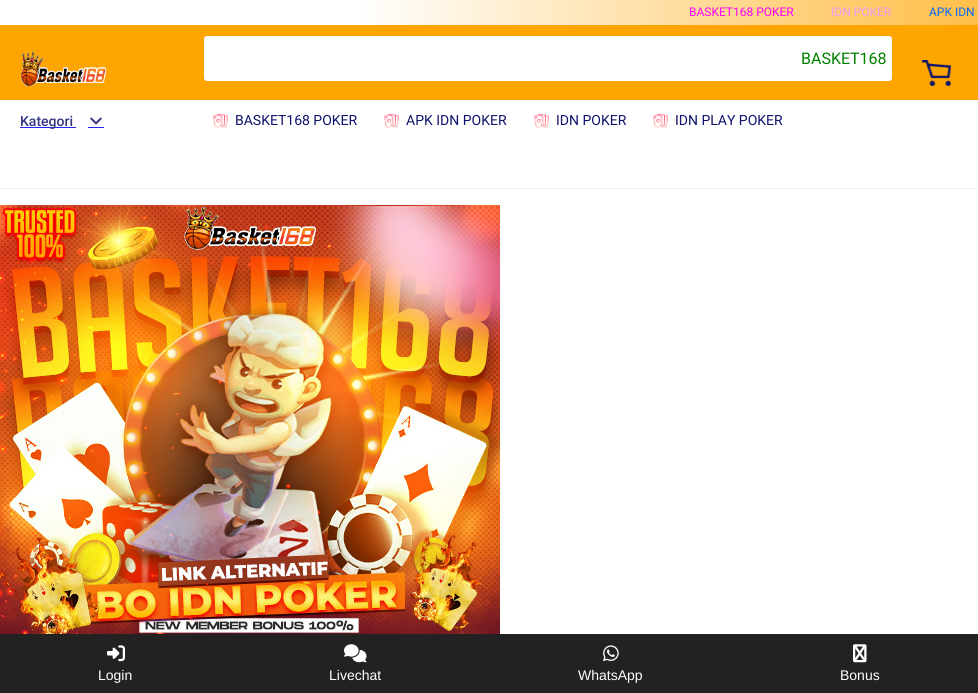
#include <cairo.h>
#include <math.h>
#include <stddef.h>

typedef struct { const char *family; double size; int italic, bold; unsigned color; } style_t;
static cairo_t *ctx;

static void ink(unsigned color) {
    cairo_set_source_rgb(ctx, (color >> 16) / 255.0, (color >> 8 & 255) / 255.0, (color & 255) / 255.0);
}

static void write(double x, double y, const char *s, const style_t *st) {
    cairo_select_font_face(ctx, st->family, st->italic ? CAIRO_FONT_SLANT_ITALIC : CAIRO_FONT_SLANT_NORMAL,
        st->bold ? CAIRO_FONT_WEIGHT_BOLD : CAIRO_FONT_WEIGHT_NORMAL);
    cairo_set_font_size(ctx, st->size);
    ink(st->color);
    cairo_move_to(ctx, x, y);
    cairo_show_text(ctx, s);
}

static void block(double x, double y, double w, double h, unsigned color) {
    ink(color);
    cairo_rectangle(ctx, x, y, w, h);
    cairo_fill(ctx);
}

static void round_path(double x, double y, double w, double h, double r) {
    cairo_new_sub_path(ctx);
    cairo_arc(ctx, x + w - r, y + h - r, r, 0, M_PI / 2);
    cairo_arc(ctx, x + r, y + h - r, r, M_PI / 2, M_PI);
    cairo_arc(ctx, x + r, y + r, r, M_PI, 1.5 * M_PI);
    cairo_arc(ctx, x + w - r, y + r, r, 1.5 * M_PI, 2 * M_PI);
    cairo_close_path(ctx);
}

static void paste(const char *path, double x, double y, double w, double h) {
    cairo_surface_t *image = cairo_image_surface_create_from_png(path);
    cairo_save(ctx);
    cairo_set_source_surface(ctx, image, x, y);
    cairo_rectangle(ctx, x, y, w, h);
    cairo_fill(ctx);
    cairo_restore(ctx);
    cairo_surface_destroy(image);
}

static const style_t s1 = {"Roboto", 12, 0, 0, 0xff00ff};
static const style_t s2 = {"Roboto", 12, 0, 0, 0xeb9cf7};
static const style_t s3 = {"Roboto", 12, 0, 0, 0x0568fc};
static const style_t s4 = {"Roboto", 16, 0, 0, 0x008000};
static const style_t s5 = {"Roboto Medium", 14, 0, 0, 0x333683};
static const style_t s6 = {"Roboto", 14, 0, 0, 0x0f136d};
static const style_t s7 = {"Liberation Sans", 14, 0, 0, 0xffffff};

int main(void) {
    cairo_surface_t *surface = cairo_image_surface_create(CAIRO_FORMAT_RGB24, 978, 693);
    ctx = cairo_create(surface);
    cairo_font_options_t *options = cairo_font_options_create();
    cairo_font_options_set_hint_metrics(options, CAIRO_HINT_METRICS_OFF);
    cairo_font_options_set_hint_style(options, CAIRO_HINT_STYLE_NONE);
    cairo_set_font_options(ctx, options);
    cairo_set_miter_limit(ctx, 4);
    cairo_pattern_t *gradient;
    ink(0xffffff);
    cairo_paint(ctx);
    gradient = cairo_pattern_create_linear(0, 14, 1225, 11);
    cairo_pattern_add_color_stop_rgba(gradient, 0.29, 1, 1, 1, 1);
    cairo_pattern_add_color_stop_rgba(gradient, 1, 1, 0.647, 0, 1);
    cairo_set_source(ctx, gradient);
    cairo_pattern_destroy(gradient);
    cairo_rectangle(ctx, 364, 0, 614, 25);
    cairo_fill(ctx);
    write(689, 16, "BASKET168 POKER", &s1);
    write(831, 16, "IDN POKER", &s2);
    write(929, 16, "APK IDN", &s3);
    block(0, 25, 978, 75, 0xffa500);
    paste("pic1.png", 20, 51, 87, 36);
    ink(0xffffff);
    round_path(204, 36, 688, 45, 3);
    cairo_fill(ctx);
    write(801, 64, "BASKET168", &s4);
    paste("pic2.png", 921, 60, 30, 26);
    block(20, 127, 56, 1, 0x2626f1);
    write(20, 126, "Kategori", &s5);
    block(88, 127, 16, 1, 0x2626f1);
    paste("pic3.png", 90, 117, 12, 8);
    paste("pic4.png", 213, 113, 16, 15);
    write(235, 125, "BASKET168 POKER", &s6);
    paste("pic4.png", 384, 113, 16, 15);
    write(406, 125, "APK IDN POKER", &s6);
    paste("pic4.png", 534, 113, 16, 15);
    write(556, 125, "IDN POKER", &s6);
    paste("pic5.png", 653, 113, 16, 15);
    write(675, 125, "IDN PLAY POKER", &s6);
    block(0, 188, 978, 1, 0xeff0f5);
    paste("pic6.png", 0, 205, 500, 429);
    block(0, 634, 978, 59, 0x222222);
    paste("pic7.png", 107, 645, 18, 17);
    write(98, 680, "Login", &s7);
    paste("pic8.png", 344, 644, 23, 19);
    write(329, 680, "Livechat", &s7);
    paste("pic9.png", 603, 645, 16, 17);
    write(578, 680, "WhatsApp", &s7);
    paste("pic10.png", 853, 644, 14, 19);
    write(840, 680, "Bonus", &s7);
    cairo_surface_write_to_png(surface, "screenshot.png");
    cairo_font_options_destroy(options);
    cairo_destroy(ctx);
    cairo_surface_destroy(surface);
    return 0;
}
